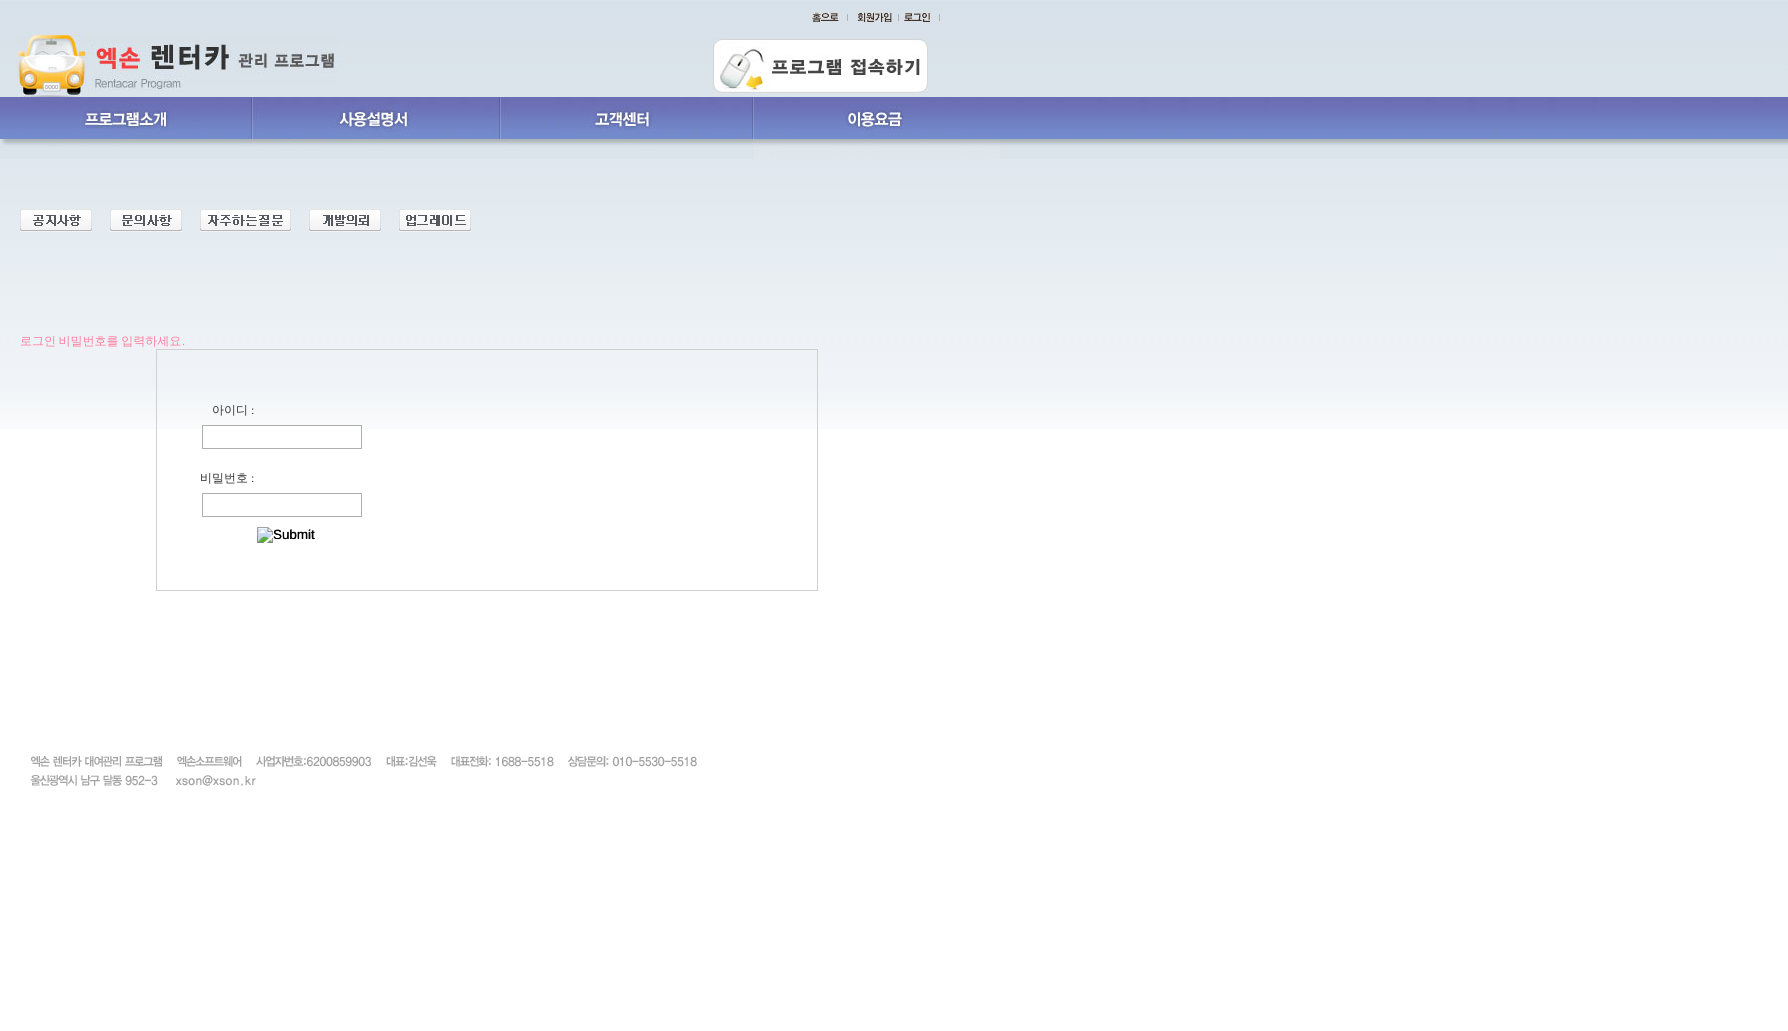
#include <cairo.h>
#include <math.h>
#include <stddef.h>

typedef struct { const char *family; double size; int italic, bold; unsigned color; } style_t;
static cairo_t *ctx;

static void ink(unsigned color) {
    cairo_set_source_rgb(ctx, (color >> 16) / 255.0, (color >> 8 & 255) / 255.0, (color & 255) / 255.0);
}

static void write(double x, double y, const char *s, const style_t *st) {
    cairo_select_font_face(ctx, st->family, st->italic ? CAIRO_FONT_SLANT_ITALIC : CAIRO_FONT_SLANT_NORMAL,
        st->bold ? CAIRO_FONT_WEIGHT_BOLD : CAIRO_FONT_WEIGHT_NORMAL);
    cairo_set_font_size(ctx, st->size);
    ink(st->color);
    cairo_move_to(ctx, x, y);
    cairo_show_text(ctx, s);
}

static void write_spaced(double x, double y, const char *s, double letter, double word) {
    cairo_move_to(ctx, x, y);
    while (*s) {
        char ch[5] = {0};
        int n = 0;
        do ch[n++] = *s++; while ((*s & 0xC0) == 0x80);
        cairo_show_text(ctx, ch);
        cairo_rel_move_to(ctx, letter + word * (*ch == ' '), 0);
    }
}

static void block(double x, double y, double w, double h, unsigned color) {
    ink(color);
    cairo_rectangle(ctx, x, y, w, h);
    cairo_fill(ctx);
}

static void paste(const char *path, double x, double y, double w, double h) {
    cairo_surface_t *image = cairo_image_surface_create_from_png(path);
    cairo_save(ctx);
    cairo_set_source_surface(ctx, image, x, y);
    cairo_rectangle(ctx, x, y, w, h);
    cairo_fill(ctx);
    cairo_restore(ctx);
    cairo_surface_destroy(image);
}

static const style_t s1 = {"Liberation Serif", 12, 0, 0, 0xff7d9e};
static const style_t s2 = {"WenQuanYi Zen Hei Medium", 12, 0, 0, 0x333333};
static const style_t s3 = {"Liberation Serif", 12, 0, 0, 0x333333};
static const style_t s4 = {"Liberation Sans", 13.5, 0, 0, 0x000000};

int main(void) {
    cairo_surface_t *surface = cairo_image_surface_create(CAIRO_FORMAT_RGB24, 1788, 1031);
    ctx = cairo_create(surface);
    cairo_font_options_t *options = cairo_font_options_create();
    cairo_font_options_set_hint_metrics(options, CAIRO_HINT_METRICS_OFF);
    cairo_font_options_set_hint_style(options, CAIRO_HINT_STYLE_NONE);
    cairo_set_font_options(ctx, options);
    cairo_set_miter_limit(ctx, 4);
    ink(0xffffff);
    cairo_paint(ctx);
    paste("pic1.png", 0, 0, 1788, 429);
    paste("pic2.png", 812, 12, 36, 10);
    paste("pic3.png", 857, 12, 42, 10);
    paste("pic4.png", 904, 12, 36, 10);
    paste("pic5.png", 18, 35, 320, 62);
    paste("pic6.png", 713, 39, 215, 54);
    paste("pic7.png", 0, 97, 1788, 62);
    paste("pic8.png", 0, 97, 252, 49);
    paste("pic9.png", 252, 97, 248, 48);
    paste("pic10.png", 500, 97, 253, 48);
    paste("pic11.png", 753, 97, 247, 62);
    paste("pic12.png", 20, 209, 72, 23);
    paste("pic13.png", 110, 209, 72, 23);
    paste("pic14.png", 200, 209, 91, 23);
    paste("pic15.png", 309, 209, 72, 23);
    paste("pic16.png", 399, 209, 72, 23);
    cairo_select_font_face(ctx, "WenQuanYi Zen Hei Medium", CAIRO_FONT_SLANT_NORMAL, CAIRO_FONT_WEIGHT_NORMAL);
    cairo_set_font_size(ctx, 12);
    ink(0xff7d9e);
    write_spaced(20, 345, "로그인 비밀번호를 입력하세요", 0, -1);
    write(182, 345, ".", &s1);
    cairo_rectangle(ctx, 156.5, 349.5, 661, 241);
    ink(0xd0d0d0);
    cairo_set_line_width(ctx, 1);
    cairo_stroke(ctx);
    write(212, 414, "아이디", &s2);
    write(251, 414, ":", &s3);
    block(203, 426, 158, 3, 0xffffff);
    cairo_rectangle(ctx, 202.5, 425.5, 159, 23);
    ink(0xafaeae);
    cairo_stroke(ctx);
    write(200, 482, "비밀번호", &s2);
    write(251, 482, ":", &s3);
    cairo_rectangle(ctx, 202.5, 493.5, 159, 23);
    ink(0xafaeae);
    cairo_stroke(ctx);
    paste("pic17.png", 257, 527, 57, 16);
    write(273, 539, "Submit", &s4);
    paste("pic18.png", 30, 756, 667, 30);
    cairo_surface_write_to_png(surface, "screenshot.png");
    cairo_font_options_destroy(options);
    cairo_destroy(ctx);
    cairo_surface_destroy(surface);
    return 0;
}
